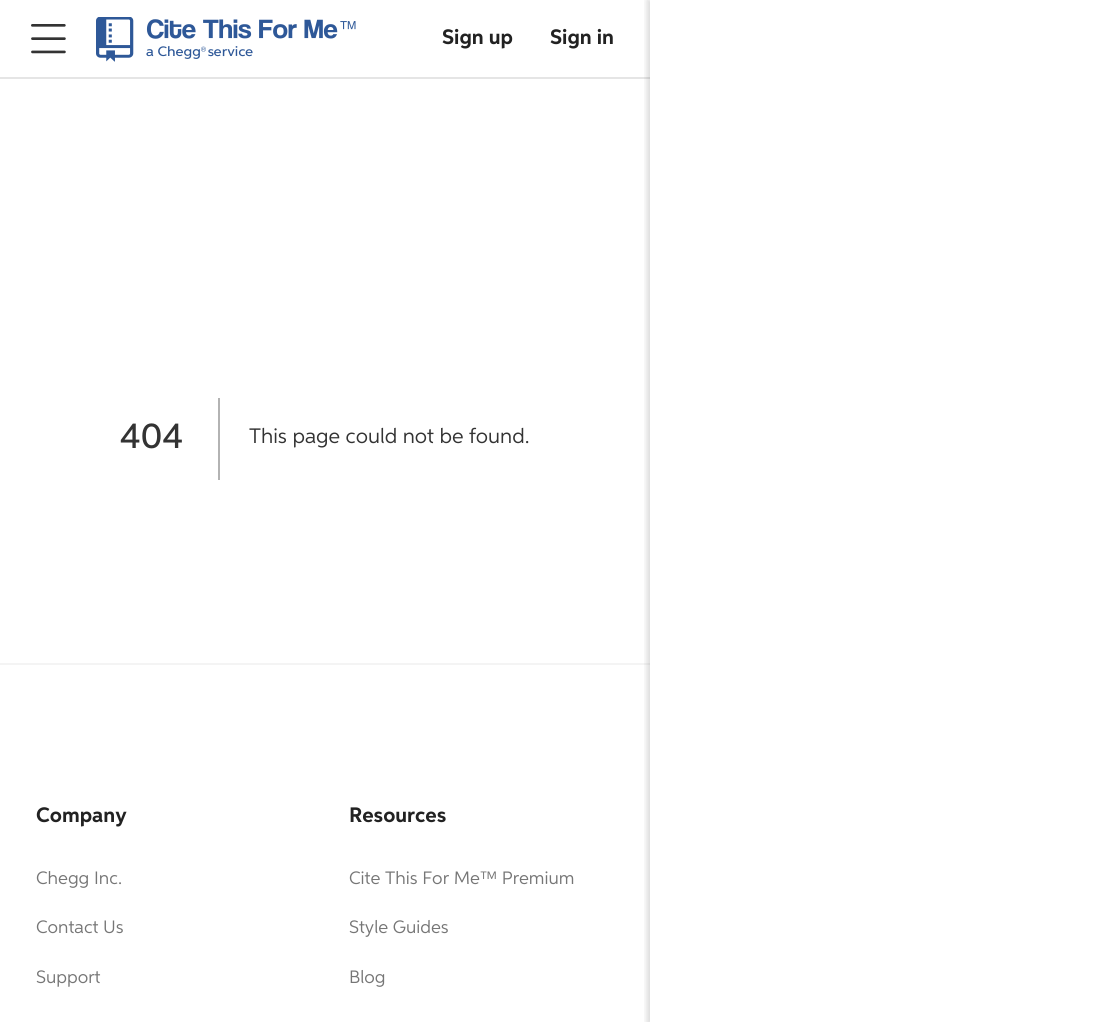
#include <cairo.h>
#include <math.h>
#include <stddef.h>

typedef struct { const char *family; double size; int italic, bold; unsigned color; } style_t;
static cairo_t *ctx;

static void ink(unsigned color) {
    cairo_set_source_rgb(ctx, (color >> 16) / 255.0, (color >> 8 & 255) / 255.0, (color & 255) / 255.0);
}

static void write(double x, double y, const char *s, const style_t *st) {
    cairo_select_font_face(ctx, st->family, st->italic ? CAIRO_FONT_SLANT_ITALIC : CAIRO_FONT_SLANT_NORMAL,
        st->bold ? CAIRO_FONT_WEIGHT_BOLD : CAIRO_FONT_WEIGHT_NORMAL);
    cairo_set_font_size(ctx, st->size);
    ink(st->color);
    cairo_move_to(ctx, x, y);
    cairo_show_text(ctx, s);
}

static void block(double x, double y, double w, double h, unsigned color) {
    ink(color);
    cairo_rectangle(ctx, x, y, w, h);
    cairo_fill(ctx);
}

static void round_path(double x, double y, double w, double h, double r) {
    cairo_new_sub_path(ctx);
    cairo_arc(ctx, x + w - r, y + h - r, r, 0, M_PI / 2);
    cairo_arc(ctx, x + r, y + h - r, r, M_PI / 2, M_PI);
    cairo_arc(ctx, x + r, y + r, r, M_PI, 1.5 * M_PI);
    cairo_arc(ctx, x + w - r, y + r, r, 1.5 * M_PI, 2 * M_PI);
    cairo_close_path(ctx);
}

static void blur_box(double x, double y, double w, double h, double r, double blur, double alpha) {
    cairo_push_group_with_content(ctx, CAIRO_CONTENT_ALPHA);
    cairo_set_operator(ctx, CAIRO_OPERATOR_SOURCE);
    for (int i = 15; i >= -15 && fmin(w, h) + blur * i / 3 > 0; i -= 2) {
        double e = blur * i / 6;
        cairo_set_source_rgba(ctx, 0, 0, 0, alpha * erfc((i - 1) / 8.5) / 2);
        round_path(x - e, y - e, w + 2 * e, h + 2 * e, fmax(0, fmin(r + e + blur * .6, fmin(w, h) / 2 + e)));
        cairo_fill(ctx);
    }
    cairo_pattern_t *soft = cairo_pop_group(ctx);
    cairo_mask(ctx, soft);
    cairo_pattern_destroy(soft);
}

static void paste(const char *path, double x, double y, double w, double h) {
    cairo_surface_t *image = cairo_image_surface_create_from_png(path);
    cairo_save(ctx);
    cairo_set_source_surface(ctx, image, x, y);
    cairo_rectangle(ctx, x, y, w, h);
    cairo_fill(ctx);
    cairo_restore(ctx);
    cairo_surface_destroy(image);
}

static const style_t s1 = {"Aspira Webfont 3", 21, 0, 0, 0x222222};
static const style_t s2 = {"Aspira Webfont", 36, 0, 0, 0x333333};
static const style_t s3 = {"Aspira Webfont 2", 21, 0, 0, 0x333333};
static const style_t s4 = {"Aspira Webfont 2", 18, 0, 0, 0x767676};

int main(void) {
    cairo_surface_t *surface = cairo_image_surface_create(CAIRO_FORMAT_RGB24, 1099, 1022);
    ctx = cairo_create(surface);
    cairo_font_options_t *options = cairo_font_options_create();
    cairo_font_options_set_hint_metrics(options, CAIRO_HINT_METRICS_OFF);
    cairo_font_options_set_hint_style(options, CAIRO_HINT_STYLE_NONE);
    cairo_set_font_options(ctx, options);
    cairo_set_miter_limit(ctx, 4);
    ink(0xffffff);
    cairo_paint(ctx);
    block(0, 77, 650, 2, 0xe5e5e5);
    paste("pic1.png", 31, 24, 35, 30);
    paste("pic2.png", 96, 17, 260, 45);
    write(442, 44, "Sign up", &s1);
    write(550, 44, "Sign in", &s1);
    block(218, 398, 2, 82, 0xb3b3b3);
    write(120, 448, "404", &s2);
    write(249, 443, "This page could not be found.", &s3);
    block(0, 663, 650, 2, 0xf4f4f4);
    write(36, 822, "Company", &s1);
    write(36, 884, "Chegg Inc.", &s4);
    write(36, 933, "Contact Us", &s4);
    write(36, 983, "Support", &s4);
    write(349, 822, "Resources", &s1);
    write(349, 884, "Cite This For Me™ Premium", &s4);
    write(349, 933, "Style Guides", &s4);
    write(349, 983, "Blog", &s4);
    cairo_save(ctx);
    cairo_rectangle(ctx, 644, 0, 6, 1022);
    cairo_clip(ctx);
    ink(0x000000);
    blur_box(647, 0, 450, 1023, 0, 3, 0.15);
    cairo_restore(ctx);
    cairo_surface_write_to_png(surface, "screenshot.png");
    cairo_font_options_destroy(options);
    cairo_destroy(ctx);
    cairo_surface_destroy(surface);
    return 0;
}
